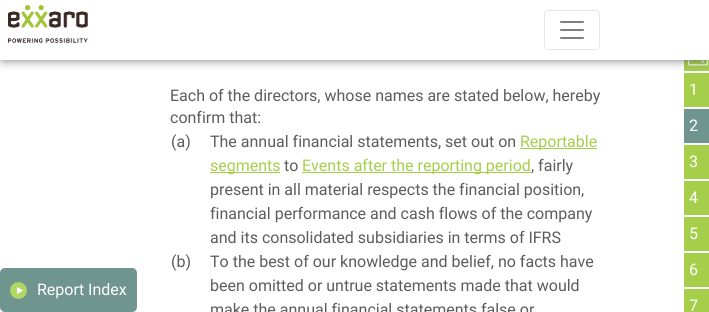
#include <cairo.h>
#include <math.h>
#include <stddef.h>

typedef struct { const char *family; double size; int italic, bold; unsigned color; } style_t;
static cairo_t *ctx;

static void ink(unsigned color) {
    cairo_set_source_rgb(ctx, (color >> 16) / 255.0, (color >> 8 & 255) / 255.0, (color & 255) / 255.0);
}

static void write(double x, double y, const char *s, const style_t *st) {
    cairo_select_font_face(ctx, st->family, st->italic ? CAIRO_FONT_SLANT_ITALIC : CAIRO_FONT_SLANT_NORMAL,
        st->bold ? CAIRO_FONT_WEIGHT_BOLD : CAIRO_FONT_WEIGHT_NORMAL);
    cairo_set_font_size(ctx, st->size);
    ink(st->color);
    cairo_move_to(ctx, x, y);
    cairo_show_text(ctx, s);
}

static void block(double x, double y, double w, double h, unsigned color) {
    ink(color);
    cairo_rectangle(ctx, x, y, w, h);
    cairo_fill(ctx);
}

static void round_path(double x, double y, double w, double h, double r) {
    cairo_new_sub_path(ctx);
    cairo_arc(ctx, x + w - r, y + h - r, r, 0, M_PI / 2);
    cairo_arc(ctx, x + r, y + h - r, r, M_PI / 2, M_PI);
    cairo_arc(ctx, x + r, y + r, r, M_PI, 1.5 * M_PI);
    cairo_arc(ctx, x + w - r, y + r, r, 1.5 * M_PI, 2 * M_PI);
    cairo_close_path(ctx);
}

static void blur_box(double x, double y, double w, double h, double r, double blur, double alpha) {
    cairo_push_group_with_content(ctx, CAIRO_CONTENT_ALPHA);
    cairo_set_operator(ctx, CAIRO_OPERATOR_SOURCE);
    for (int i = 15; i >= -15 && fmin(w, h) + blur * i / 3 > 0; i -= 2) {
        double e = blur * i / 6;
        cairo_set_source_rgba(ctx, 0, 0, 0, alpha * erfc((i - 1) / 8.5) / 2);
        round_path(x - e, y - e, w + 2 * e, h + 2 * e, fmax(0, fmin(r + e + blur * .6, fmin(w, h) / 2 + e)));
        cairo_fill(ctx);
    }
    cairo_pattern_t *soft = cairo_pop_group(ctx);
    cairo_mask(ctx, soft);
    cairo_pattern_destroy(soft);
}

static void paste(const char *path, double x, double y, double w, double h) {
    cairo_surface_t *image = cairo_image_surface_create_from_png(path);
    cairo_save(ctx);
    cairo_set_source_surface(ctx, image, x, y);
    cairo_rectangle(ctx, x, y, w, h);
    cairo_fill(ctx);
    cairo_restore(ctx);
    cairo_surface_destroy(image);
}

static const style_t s1 = {"Roboto", 16, 0, 0, 0xffffff};
static const style_t s2 = {"Roboto", 16, 0, 0, 0x5c5c5c};
static const style_t s3 = {"Roboto", 16, 0, 0, 0xa5cf4b};

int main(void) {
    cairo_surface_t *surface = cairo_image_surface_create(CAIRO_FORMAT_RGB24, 709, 312);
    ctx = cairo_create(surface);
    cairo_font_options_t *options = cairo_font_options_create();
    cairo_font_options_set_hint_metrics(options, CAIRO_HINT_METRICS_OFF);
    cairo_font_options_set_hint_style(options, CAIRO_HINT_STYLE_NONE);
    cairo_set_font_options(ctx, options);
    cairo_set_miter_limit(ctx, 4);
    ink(0xffffff);
    cairo_paint(ctx);
    block(684, 60, 25, 11, 0xa5cf4b);
    paste("pic4.png", 688, 60, 20, 6);
    block(684, 73, 25, 34, 0xa5cf4b);
    ink(0x57585b);
    blur_box(3, 5, 703, 54, 0, 5.5, 1);
    block(0, 0, 709, 60, 0xffffff);
    paste("pic1.png", 8, 5, 80, 38);
    round_path(544.5, 10.5, 55, 39, 3.5);
    ink(0xe6e6e6);
    cairo_set_line_width(ctx, 1);
    cairo_stroke(ctx);
    paste("pic2.png", 560, 21, 24, 18);
    ink(0x70948e);
    round_path(0, 268, 137, 44, 5);
    cairo_fill(ctx);
    paste("pic3.png", 10, 282, 17, 17);
    write(37, 295, "Report Index", &s1);
    write(170, 101, "Each of the directors, whose names are stated below, hereby", &s2);
    write(170, 123, "confirm that:", &s2);
    write(171, 147, "(a)", &s2);
    write(210, 147, "The annual financial statements, set out on", &s2);
    block(520, 148, 77, 1, 0xa5cf4b);
    write(520, 147, "Reportable", &s3);
    block(210, 172, 70, 1, 0xa5cf4b);
    write(210, 171, "segments", &s3);
    write(284, 171, "to", &s2);
    block(302, 172, 229, 1, 0xa5cf4b);
    write(302, 171, "Events after the reporting period", &s3);
    write(531, 171, ", fairly", &s2);
    write(210, 195, "present in all material respects the financial position,", &s2);
    write(210, 219, "financial performance and cash flows of the company", &s2);
    write(210, 243, "and its consolidated subsidiaries in terms of IFRS", &s2);
    write(171, 267, "(b)", &s2);
    write(210, 267, "To the best of our knowledge and belief, no facts have", &s2);
    write(210, 291, "been omitted or untrue statements made that would", &s2);
    write(210, 315, "make the annual financial statements false or", &s2);
    write(689, 95, "1", &s1);
    block(684, 109, 25, 34, 0x70948e);
    write(689, 131, "2", &s1);
    block(684, 145, 25, 34, 0xa5cf4b);
    write(689, 167, "3", &s1);
    block(684, 181, 25, 34, 0xa5cf4b);
    write(689, 203, "4", &s1);
    block(684, 217, 25, 34, 0xa5cf4b);
    write(689, 239, "5", &s1);
    block(684, 253, 25, 34, 0xa5cf4b);
    write(689, 275, "6", &s1);
    block(684, 289, 25, 23, 0xa5cf4b);
    write(689, 311, "7", &s1);
    cairo_surface_write_to_png(surface, "screenshot.png");
    cairo_font_options_destroy(options);
    cairo_destroy(ctx);
    cairo_surface_destroy(surface);
    return 0;
}
